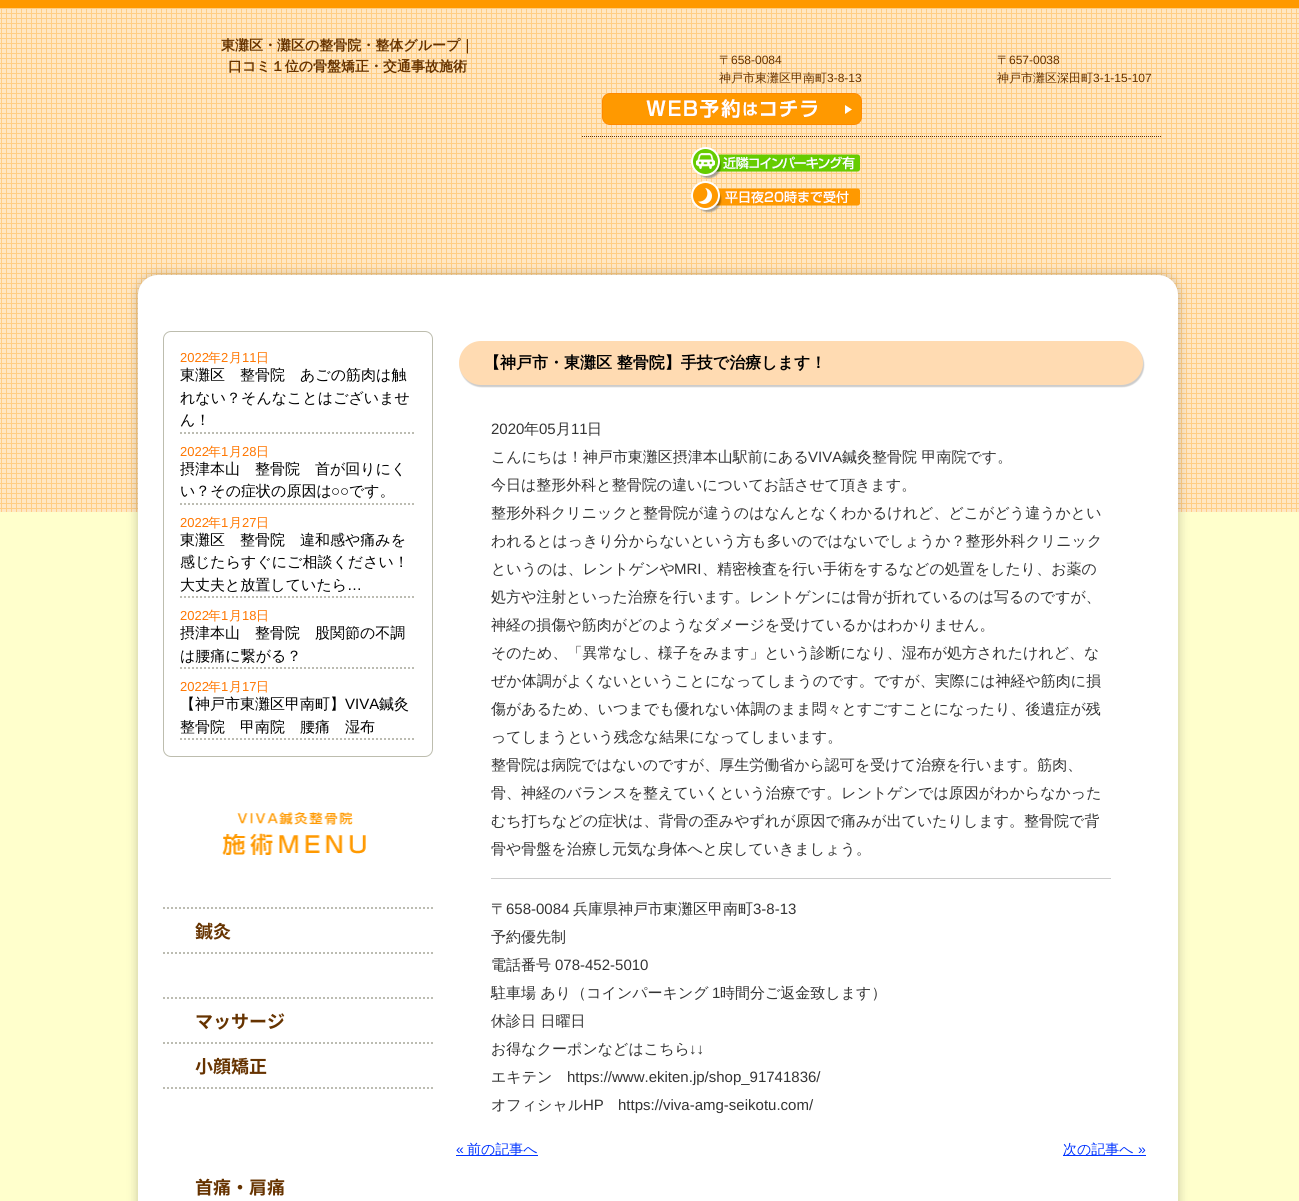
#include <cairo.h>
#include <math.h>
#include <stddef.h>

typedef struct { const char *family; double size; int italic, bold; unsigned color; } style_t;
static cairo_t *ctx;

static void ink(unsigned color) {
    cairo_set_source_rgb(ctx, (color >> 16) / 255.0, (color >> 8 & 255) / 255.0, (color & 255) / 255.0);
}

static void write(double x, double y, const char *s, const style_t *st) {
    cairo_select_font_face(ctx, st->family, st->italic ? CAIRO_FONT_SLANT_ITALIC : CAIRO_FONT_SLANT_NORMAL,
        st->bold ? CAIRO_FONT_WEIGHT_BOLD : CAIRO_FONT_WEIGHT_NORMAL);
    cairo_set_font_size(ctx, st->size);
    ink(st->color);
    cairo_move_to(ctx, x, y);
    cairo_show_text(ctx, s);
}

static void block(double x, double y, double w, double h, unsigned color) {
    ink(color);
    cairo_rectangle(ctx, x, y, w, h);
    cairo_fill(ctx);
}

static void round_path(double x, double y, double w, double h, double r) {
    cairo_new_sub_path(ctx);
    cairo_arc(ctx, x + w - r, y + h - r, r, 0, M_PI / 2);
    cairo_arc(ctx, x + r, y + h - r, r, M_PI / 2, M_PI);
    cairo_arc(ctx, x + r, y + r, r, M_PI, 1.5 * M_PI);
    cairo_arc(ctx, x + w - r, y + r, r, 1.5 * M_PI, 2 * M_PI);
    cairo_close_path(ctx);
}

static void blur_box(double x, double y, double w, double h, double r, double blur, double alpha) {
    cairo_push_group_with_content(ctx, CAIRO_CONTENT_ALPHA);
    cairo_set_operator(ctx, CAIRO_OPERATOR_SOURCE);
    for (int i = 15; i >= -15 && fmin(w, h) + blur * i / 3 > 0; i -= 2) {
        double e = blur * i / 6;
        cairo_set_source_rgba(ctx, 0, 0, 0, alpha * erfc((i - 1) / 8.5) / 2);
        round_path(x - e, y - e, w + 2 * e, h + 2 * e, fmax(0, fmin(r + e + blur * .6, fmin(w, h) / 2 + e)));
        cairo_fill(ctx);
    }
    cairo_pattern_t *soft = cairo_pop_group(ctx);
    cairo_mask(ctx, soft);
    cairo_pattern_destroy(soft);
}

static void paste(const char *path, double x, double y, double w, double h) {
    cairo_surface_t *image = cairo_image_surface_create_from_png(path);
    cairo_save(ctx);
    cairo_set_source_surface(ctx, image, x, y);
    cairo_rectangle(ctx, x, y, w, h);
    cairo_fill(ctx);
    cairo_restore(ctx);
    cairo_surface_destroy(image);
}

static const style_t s1 = {"WenQuanYi Zen Hei", 14, 0, 1, 0x663300};
static const style_t s2 = {"WenQuanYi Zen Hei Medium", 12, 0, 0, 0x663300};
static const style_t s3 = {"Liberation Sans", 12, 0, 0, 0x663300};
static const style_t s4 = {"Liberation Sans", 13, 0, 0, 0xff7600};
static const style_t s5 = {"WenQuanYi Zen Hei Medium", 13, 0, 0, 0xff7600};
static const style_t s6 = {"WenQuanYi Zen Hei Medium", 15, 0, 0, 0x000000};
static const style_t s7 = {"Liberation Sans", 15, 0, 0, 0x000000};
static const style_t s8 = {"Noto Sans JP", 18, 0, 1, 0x663300};
static const style_t s9 = {"WenQuanYi Zen Hei", 16, 0, 1, 0x000000};
static const style_t s10 = {"Liberation Sans", 15, 0, 0, 0x333333};
static const style_t s11 = {"WenQuanYi Zen Hei Medium", 15, 0, 0, 0x333333};
static const style_t s12 = {"Liberation Sans", 14, 0, 0, 0x0033ff};
static const style_t s13 = {"WenQuanYi Zen Hei Medium", 14, 0, 0, 0x0033ff};

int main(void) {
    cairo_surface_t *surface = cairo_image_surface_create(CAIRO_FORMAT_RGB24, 1299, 1201);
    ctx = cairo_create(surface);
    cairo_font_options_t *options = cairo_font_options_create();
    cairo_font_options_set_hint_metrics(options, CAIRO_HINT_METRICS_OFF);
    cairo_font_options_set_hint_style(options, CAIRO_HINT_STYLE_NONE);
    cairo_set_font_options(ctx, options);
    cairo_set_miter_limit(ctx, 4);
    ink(0xffffcc);
    cairo_paint(ctx);
    paste("pic1.png", 0, 0, 1299, 512);
    write(221, 50, "東灘区・灘区の整骨院・整体グループ｜", &s1);
    write(228, 71, "口コミ１位の骨盤矯正・交通事故施術", &s1);
    cairo_new_path(ctx);
    cairo_move_to(ctx, 582, 136.5);
    cairo_line_to(ctx, 1162, 136.5);
    cairo_set_line_width(ctx, 1);
    cairo_set_dash(ctx, (double[]){1, 1}, 2, 0);
    cairo_stroke(ctx);
    write(719, 64, "〒", &s2);
    write(731, 64, "658-0084", &s3);
    write(719, 82, "神戸市東灘区甲南町", &s2);
    write(827, 82, "3-8-13", &s3);
    paste("pic2.png", 602, 93, 260, 32);
    write(997, 64, "〒", &s2);
    write(1009, 64, "657-0038", &s3);
    write(997, 82, "神戸市灘区深田町", &s2);
    write(1093, 82, "3-1-15-107", &s3);
    paste("pic3.png", 691, 147, 169, 66);
    ink(0x000000);
    blur_box(137, 274, 1042, 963, 21, 5, 0.2);
    ink(0xffffff);
    round_path(138, 275, 1040, 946, 20);
    cairo_fill(ctx);
    round_path(163.5, 331.5, 269, 425, 7.5);
    ink(0xbdbdae);
    cairo_set_dash(ctx, NULL, 0, 0);
    cairo_stroke(ctx);
    cairo_new_path(ctx);
    cairo_move_to(ctx, 180, 433);
    cairo_line_to(ctx, 416, 433);
    ink(0xbcbcb2);
    cairo_set_line_width(ctx, 2);
    cairo_set_dash(ctx, (double[]){2, 2}, 2, 0);
    cairo_stroke(ctx);
    write(180, 362, "2022", &s4);
    write(208, 362, "年", &s5);
    write(221, 362, "2", &s4);
    write(229, 362, "月", &s5);
    write(242, 362, "11", &s4);
    write(256, 362, "日", &s5);
    write(180, 380, "東灘区　整骨院　あごの筋肉は触", &s6);
    write(180, 403, "れない？そんなことはございませ", &s6);
    write(180, 425, "ん！", &s6);
    cairo_new_path(ctx);
    cairo_move_to(ctx, 180, 504);
    cairo_line_to(ctx, 416, 504);
    ink(0xbcbcb2);
    cairo_stroke(ctx);
    write(180, 456, "2022", &s4);
    write(208, 456, "年", &s5);
    write(221, 456, "1", &s4);
    write(229, 456, "月", &s5);
    write(242, 456, "28", &s4);
    write(256, 456, "日", &s5);
    write(180, 474, "摂津本山　整骨院　首が回りにく", &s6);
    write(180, 496, "い？その症状の原因は", &s6);
    write(331, 496, "○○", &s7);
    write(349, 496, "です。", &s6);
    cairo_new_path(ctx);
    cairo_move_to(ctx, 180, 597);
    cairo_line_to(ctx, 416, 597);
    ink(0xbcbcb2);
    cairo_stroke(ctx);
    write(180, 527, "2022", &s4);
    write(208, 527, "年", &s5);
    write(221, 527, "1", &s4);
    write(229, 527, "月", &s5);
    write(242, 527, "27", &s4);
    write(256, 527, "日", &s5);
    write(180, 545, "東灘区　整骨院　違和感や痛みを", &s6);
    write(180, 567, "感じたらすぐにご相談ください！", &s6);
    write(180, 590, "大丈夫と放置していたら", &s6);
    write(347, 590, "…", &s7);
    cairo_new_path(ctx);
    cairo_move_to(ctx, 180, 668);
    cairo_line_to(ctx, 416, 668);
    ink(0xbcbcb2);
    cairo_stroke(ctx);
    write(180, 620, "2022", &s4);
    write(208, 620, "年", &s5);
    write(221, 620, "1", &s4);
    write(229, 620, "月", &s5);
    write(242, 620, "18", &s4);
    write(256, 620, "日", &s5);
    write(180, 638, "摂津本山　整骨院　股関節の不調", &s6);
    write(180, 661, "は腰痛に繋がる？", &s6);
    cairo_new_path(ctx);
    cairo_move_to(ctx, 180, 739);
    cairo_line_to(ctx, 416, 739);
    ink(0xbcbcb2);
    cairo_stroke(ctx);
    write(180, 691, "2022", &s4);
    write(208, 691, "年", &s5);
    write(221, 691, "1", &s4);
    write(229, 691, "月", &s5);
    write(242, 691, "17", &s4);
    write(256, 691, "日", &s5);
    write(180, 709, "【神戸市東灘区甲南町】", &s6);
    write(345, 709, "VIVA", &s7);
    write(379, 709, "鍼灸", &s6);
    write(180, 732, "整骨院　甲南院　腰痛　湿布", &s6);
    paste("pic4.png", 222, 812, 144, 43);
    cairo_new_path(ctx);
    cairo_move_to(ctx, 163, 908);
    cairo_line_to(ctx, 433, 908);
    ink(0xbcbcb2);
    cairo_stroke(ctx);
    cairo_new_path(ctx);
    cairo_move_to(ctx, 163, 953);
    cairo_line_to(ctx, 433, 953);
    cairo_stroke(ctx);
    write(195, 938, "鍼灸", &s8);
    cairo_new_path(ctx);
    cairo_move_to(ctx, 163, 998);
    cairo_line_to(ctx, 433, 998);
    ink(0xbcbcb2);
    cairo_stroke(ctx);
    cairo_new_path(ctx);
    cairo_move_to(ctx, 163, 1043);
    cairo_line_to(ctx, 433, 1043);
    cairo_stroke(ctx);
    write(195, 1028, "マッサージ", &s8);
    cairo_new_path(ctx);
    cairo_move_to(ctx, 163, 1088);
    cairo_line_to(ctx, 433, 1088);
    ink(0xbcbcb2);
    cairo_stroke(ctx);
    write(195, 1073, "小顔矯正", &s8);
    write(195, 1194, "首痛・肩痛", &s8);
    ink(0xcccccc);
    blur_box(460, 343, 684, 44, 22, 0.5, 1);
    ink(0xffdbb2);
    round_path(459, 341, 684, 44, 22);
    cairo_fill(ctx);
    write(484, 368, "【神戸市・東灘区 整骨院】手技で治療します！", &s9);
    write(491, 434, "2020", &s10);
    write(524, 434, "年", &s11);
    write(539, 434, "05", &s10);
    write(556, 434, "月", &s11);
    write(571, 434, "11", &s10);
    write(587, 434, "日", &s11);
    write(491, 462, "こんにちは！神戸市東灘区摂津本山駅前にある", &s11);
    write(808, 462, "VIVA", &s10);
    write(842, 462, "鍼灸整骨院 甲南院です。", &s11);
    write(491, 490, "今日は整形外科と整骨院の違いについてお話させて頂きます。", &s11);
    write(491, 518, "整形外科クリニックと整骨院が違うのはなんとなくわかるけれど、どこがどう違うかとい", &s11);
    write(491, 546, "われるとはっきり分からないという方も多いのではないでしょうか？整形外科クリニック", &s11);
    write(491, 574, "というのは、レントゲンや", &s11);
    write(674, 574, "MRI", &s10);
    write(702, 574, "、精密検査を行い手術をするなどの処置をしたり、お薬の", &s11);
    write(491, 602, "処方や注射といった治療を行います。レントゲンには骨が折れているのは写るのですが、", &s11);
    write(491, 630, "神経の損傷や筋肉がどのようなダメージを受けているかはわかりません。", &s11);
    write(491, 658, "そのため、「異常なし、様子をみます」という診断になり、湿布が処方されたけれど、な", &s11);
    write(491, 686, "ぜか体調がよくないということになってしまうのです。ですが、実際には神経や筋肉に損", &s11);
    write(491, 714, "傷があるため、いつまでも優れない体調のまま悶々とすごすことになったり、後遺症が残", &s11);
    write(491, 742, "ってしまうという残念な結果になってしまいます。", &s11);
    write(491, 770, "整骨院は病院ではないのですが、厚生労働省から認可を受けて治療を行います。筋肉、", &s11);
    write(491, 798, "骨、神経のバランスを整えていくという治療です。レントゲンでは原因がわからなかった", &s11);
    write(491, 826, "むち打ちなどの症状は、背骨の歪みやずれが原因で痛みが出ていたりします。整骨院で背", &s11);
    write(491, 854, "骨や骨盤を治療し元気な身体へと戻していきましょう。", &s11);
    block(491, 878, 620, 1, 0xcccccc);
    write(491, 914, "〒", &s11);
    write(506, 914, "658-0084", &s10);
    write(573, 914, "兵庫県神戸市東灘区甲南町", &s11);
    write(753, 914, "3-8-13", &s10);
    write(491, 942, "予約優先制", &s11);
    write(491, 970, "電話番号", &s11);
    write(555, 970, "078-452-5010", &s10);
    write(491, 998, "駐車場 あり（コインパーキング", &s11);
    write(712, 998, "1", &s10);
    write(720, 998, "時間分ご返金致します）", &s11);
    write(491, 1026, "休診日 日曜日", &s11);
    write(491, 1054, "お得なクーポンなどはこちら", &s11);
    write(689, 1054, "↓↓", &s10);
    write(491, 1082, "エキテン", &s11);
    write(567, 1082, "https://www.ekiten.jp/shop_91741836/", &s10);
    write(491, 1110, "オフィシャル", &s11);
    write(583, 1110, "HP", &s10);
    write(618, 1110, "https://viva-amg-seikotu.com/", &s10);
    write(456, 1154, "«", &s12);
    block(456, 1155, 82, 1, 0x0033ff);
    write(467, 1154, "前の記事へ", &s13);
    block(1063, 1155, 83, 1, 0x0033ff);
    write(1063, 1154, "次の記事へ", &s13);
    write(1138, 1154, "»", &s12);
    cairo_surface_write_to_png(surface, "screenshot.png");
    cairo_font_options_destroy(options);
    cairo_destroy(ctx);
    cairo_surface_destroy(surface);
    return 0;
}
